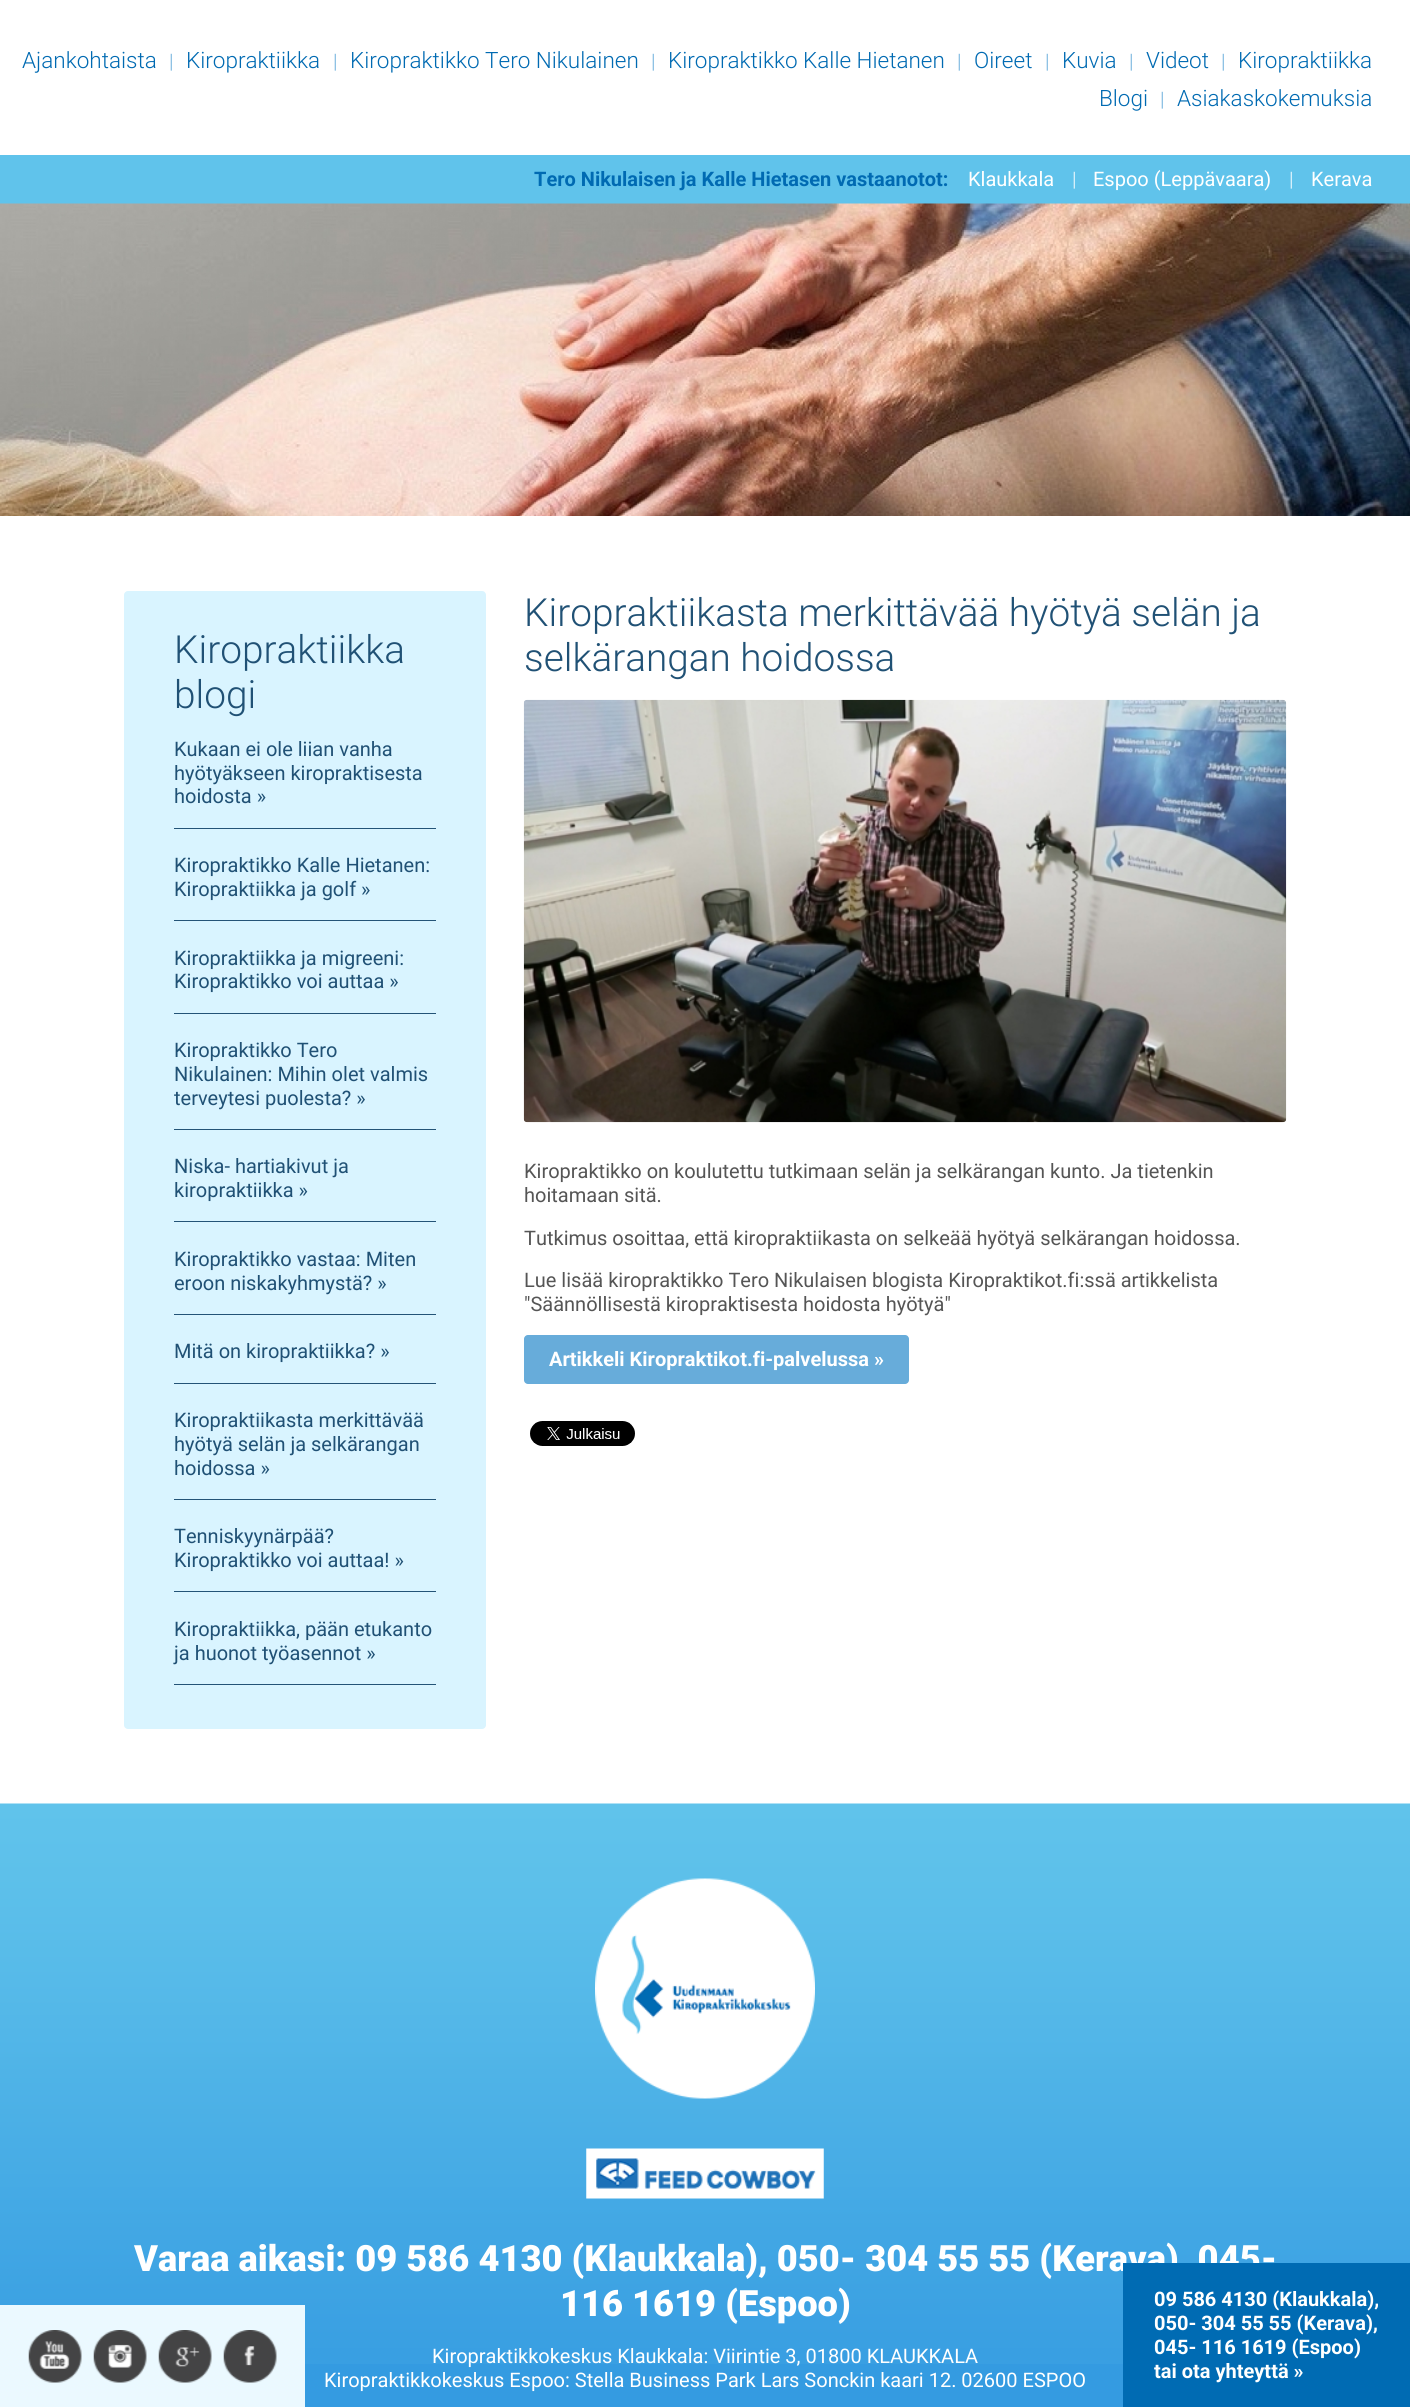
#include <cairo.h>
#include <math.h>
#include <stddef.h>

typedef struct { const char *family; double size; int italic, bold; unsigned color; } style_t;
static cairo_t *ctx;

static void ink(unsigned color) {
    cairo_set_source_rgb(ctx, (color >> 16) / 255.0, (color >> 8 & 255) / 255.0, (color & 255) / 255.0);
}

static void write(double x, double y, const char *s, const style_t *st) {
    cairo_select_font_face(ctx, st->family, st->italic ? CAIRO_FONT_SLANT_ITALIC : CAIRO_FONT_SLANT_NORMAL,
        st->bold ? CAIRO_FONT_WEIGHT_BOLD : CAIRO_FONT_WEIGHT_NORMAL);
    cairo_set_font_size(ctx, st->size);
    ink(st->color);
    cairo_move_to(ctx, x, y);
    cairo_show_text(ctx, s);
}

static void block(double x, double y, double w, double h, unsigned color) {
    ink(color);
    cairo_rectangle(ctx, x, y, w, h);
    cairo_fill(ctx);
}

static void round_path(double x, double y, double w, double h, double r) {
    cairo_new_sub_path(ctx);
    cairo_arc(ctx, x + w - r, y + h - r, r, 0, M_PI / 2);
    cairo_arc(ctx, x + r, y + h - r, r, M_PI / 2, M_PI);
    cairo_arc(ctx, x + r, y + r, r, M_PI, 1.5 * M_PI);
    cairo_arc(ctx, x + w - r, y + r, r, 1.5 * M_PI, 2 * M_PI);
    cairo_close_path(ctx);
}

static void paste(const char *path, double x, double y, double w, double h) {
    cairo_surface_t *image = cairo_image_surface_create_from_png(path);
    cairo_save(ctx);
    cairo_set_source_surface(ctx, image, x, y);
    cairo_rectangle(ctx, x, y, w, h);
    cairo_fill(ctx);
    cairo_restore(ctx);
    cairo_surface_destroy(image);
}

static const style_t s1 = {"Roboto Light", 22.5, 0, 0, 0x006ab2};
static const style_t s2 = {"Roboto Light", 20, 0, 0, 0x67acda};
static const style_t s3 = {"Roboto", 20, 0, 1, 0x006ab2};
static const style_t s4 = {"Roboto", 20, 0, 0, 0xffffff};
static const style_t s5 = {"Roboto Light", 20, 0, 0, 0xffffff};
static const style_t s6 = {"Roboto Light", 38.75, 0, 0, 0x205175};
static const style_t s7 = {"Roboto", 20, 0, 0, 0x205175};
static const style_t s8 = {"Roboto", 20, 0, 0, 0x555555};
static const style_t s9 = {"Roboto", 20, 0, 1, 0xffffff};
static const style_t s10 = {"Roboto Black", 36.25, 0, 0, 0xffffff};

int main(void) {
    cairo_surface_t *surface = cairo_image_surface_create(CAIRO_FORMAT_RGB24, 1410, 2407);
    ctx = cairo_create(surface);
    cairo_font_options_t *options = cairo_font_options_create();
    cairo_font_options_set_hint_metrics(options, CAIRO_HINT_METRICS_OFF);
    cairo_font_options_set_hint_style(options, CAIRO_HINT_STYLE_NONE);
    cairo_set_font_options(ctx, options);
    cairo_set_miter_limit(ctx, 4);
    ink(0xffffff);
    cairo_paint(ctx);
    write(22, 68, "Ajankohtaista", &s1);
    write(169, 68, "|", &s2);
    write(186, 68, "Kiropraktiikka", &s1);
    write(333, 68, "|", &s2);
    write(350, 68, "Kiropraktikko Tero Nikulainen", &s1);
    write(651, 68, "|", &s2);
    write(668, 68, "Kiropraktikko Kalle Hietanen", &s1);
    write(957, 68, "|", &s2);
    write(974, 68, "Oireet", &s1);
    write(1045, 68, "|", &s2);
    write(1062, 68, "Kuvia", &s1);
    write(1129, 68, "|", &s2);
    write(1146, 68, "Videot", &s1);
    write(1221, 68, "|", &s2);
    write(1238, 68, "Kiropraktiikka", &s1);
    write(1099, 106, "Blogi", &s1);
    write(1160, 106, "|", &s2);
    write(1177, 106, "Asiakaskokemuksia", &s1);
    block(0, 155, 1410, 49, 0x60c3eb);
    write(534, 186, "Tero Nikulaisen ja Kalle Hietasen vastaanotot:", &s3);
    write(968, 186, "Klaukkala", &s4);
    write(1072, 186, "|", &s5);
    write(1093, 186, "Espoo (Leppävaara)", &s4);
    write(1289, 186, "|", &s5);
    write(1311, 186, "Kerava", &s4);
    paste("pic1.png", 0, 203, 1410, 313);
    ink(0xd9f4ff);
    round_path(124, 591, 362, 1138, 4);
    cairo_fill(ctx);
    write(174, 663, "Kiropraktiikka", &s6);
    write(174, 708, "blogi", &s6);
    write(174, 756, "Kukaan ei ole liian vanha", &s7);
    write(174, 780, "hyötyäkseen kiropraktisesta", &s7);
    write(174, 803, "hoidosta »", &s7);
    block(174, 828, 262, 1, 0x235377);
    write(174, 872, "Kiropraktikko Kalle Hietanen:", &s7);
    write(174, 896, "Kiropraktiikka ja golf »", &s7);
    block(174, 920, 262, 1, 0x235377);
    write(174, 965, "Kiropraktiikka ja migreeni:", &s7);
    write(174, 988, "Kiropraktikko voi auttaa »", &s7);
    block(174, 1013, 262, 1, 0x235377);
    write(174, 1057, "Kiropraktikko Tero", &s7);
    write(174, 1081, "Nikulainen: Mihin olet valmis", &s7);
    write(174, 1105, "terveytesi puolesta? »", &s7);
    block(174, 1129, 262, 1, 0x235377);
    write(174, 1173, "Niska- hartiakivut ja", &s7);
    write(174, 1197, "kiropraktiikka »", &s7);
    block(174, 1221, 262, 1, 0x235377);
    write(174, 1266, "Kiropraktikko vastaa: Miten", &s7);
    write(174, 1290, "eroon niskakyhmystä? »", &s7);
    block(174, 1314, 262, 1, 0x235377);
    write(174, 1358, "Mitä on kiropraktiikka? »", &s7);
    block(174, 1383, 262, 1, 0x235377);
    write(174, 1427, "Kiropraktiikasta merkittävää", &s7);
    write(174, 1451, "hyötyä selän ja selkärangan", &s7);
    write(174, 1475, "hoidossa »", &s7);
    block(174, 1499, 262, 1, 0x235377);
    write(174, 1543, "Tenniskyynärpää?", &s7);
    write(174, 1567, "Kiropraktikko voi auttaa! »", &s7);
    block(174, 1591, 262, 1, 0x235377);
    write(174, 1636, "Kiropraktiikka, pään etukanto", &s7);
    write(174, 1660, "ja huonot työasennot »", &s7);
    block(174, 1684, 262, 1, 0x235377);
    write(524, 626, "Kiropraktiikasta merkittävää hyötyä selän ja", &s6);
    write(524, 671, "selkärangan hoidossa", &s6);
    paste("pic2.png", 523, 699, 764, 424);
    write(524, 1178, "Kiropraktikko on koulutettu tutkimaan selän ja selkärangan kunto. Ja tietenkin", &s8);
    write(524, 1202, "hoitamaan sitä.", &s8);
    write(524, 1245, "Tutkimus osoittaa, että kiropraktiikasta on selkeää hyötyä selkärangan hoidossa.", &s8);
    write(524, 1287, "Lue lisää kiropraktikko Tero Nikulaisen blogista Kiropraktikot.fi:ssä artikkelista", &s8);
    write(524, 1311, "\"Säännöllisestä kiropraktisesta hoidosta hyötyä\"", &s8);
    ink(0x67acda);
    round_path(524, 1335, 385, 49, 4);
    cairo_fill(ctx);
    write(549, 1366, "Artikkeli Kiropraktikot.fi-palvelussa »", &s9);
    paste("pic3.png", 530, 1421, 105, 25);
    block(305, 2364, 818, 43, 0x349be1);
    paste("pic4.png", 0, 1803, 1410, 561);
    paste("pic5.png", 595, 1878, 220, 221);
    paste("pic6.png", 586, 2148, 238, 51);
    write(134, 2271, "Varaa aikasi: 09 586 4130 (Klaukkala), 050- 304 55 55 (Kerava), 045-", &s10);
    write(560, 2316, "116 1619 (Espoo)", &s10);
    write(432, 2363, "Kiropraktikkokeskus Klaukkala: Viirintie 3, 01800 KLAUKKALA", &s4);
    write(324, 2387, "Kiropraktikkokeskus Espoo: Stella Business Park Lars Sonckin kaari 12. 02600 ESPOO", &s4);
    block(0, 2305, 305, 102, 0xebf9ff);
    paste("pic7.png", 28, 2330, 54, 53);
    paste("pic8.png", 93, 2330, 54, 53);
    paste("pic9.png", 158, 2330, 54, 53);
    paste("pic10.png", 223, 2330, 54, 53);
    block(1123, 2263, 287, 144, 0x006bb3);
    write(1154, 2306, "09 586 4130 (Klaukkala),", &s9);
    write(1154, 2330, "050- 304 55 55 (Kerava),", &s9);
    write(1154, 2354, "045- 116 1619 (Espoo)", &s9);
    write(1154, 2378, "tai ota yhteyttä »", &s9);
    cairo_surface_write_to_png(surface, "screenshot.png");
    cairo_font_options_destroy(options);
    cairo_destroy(ctx);
    cairo_surface_destroy(surface);
    return 0;
}
